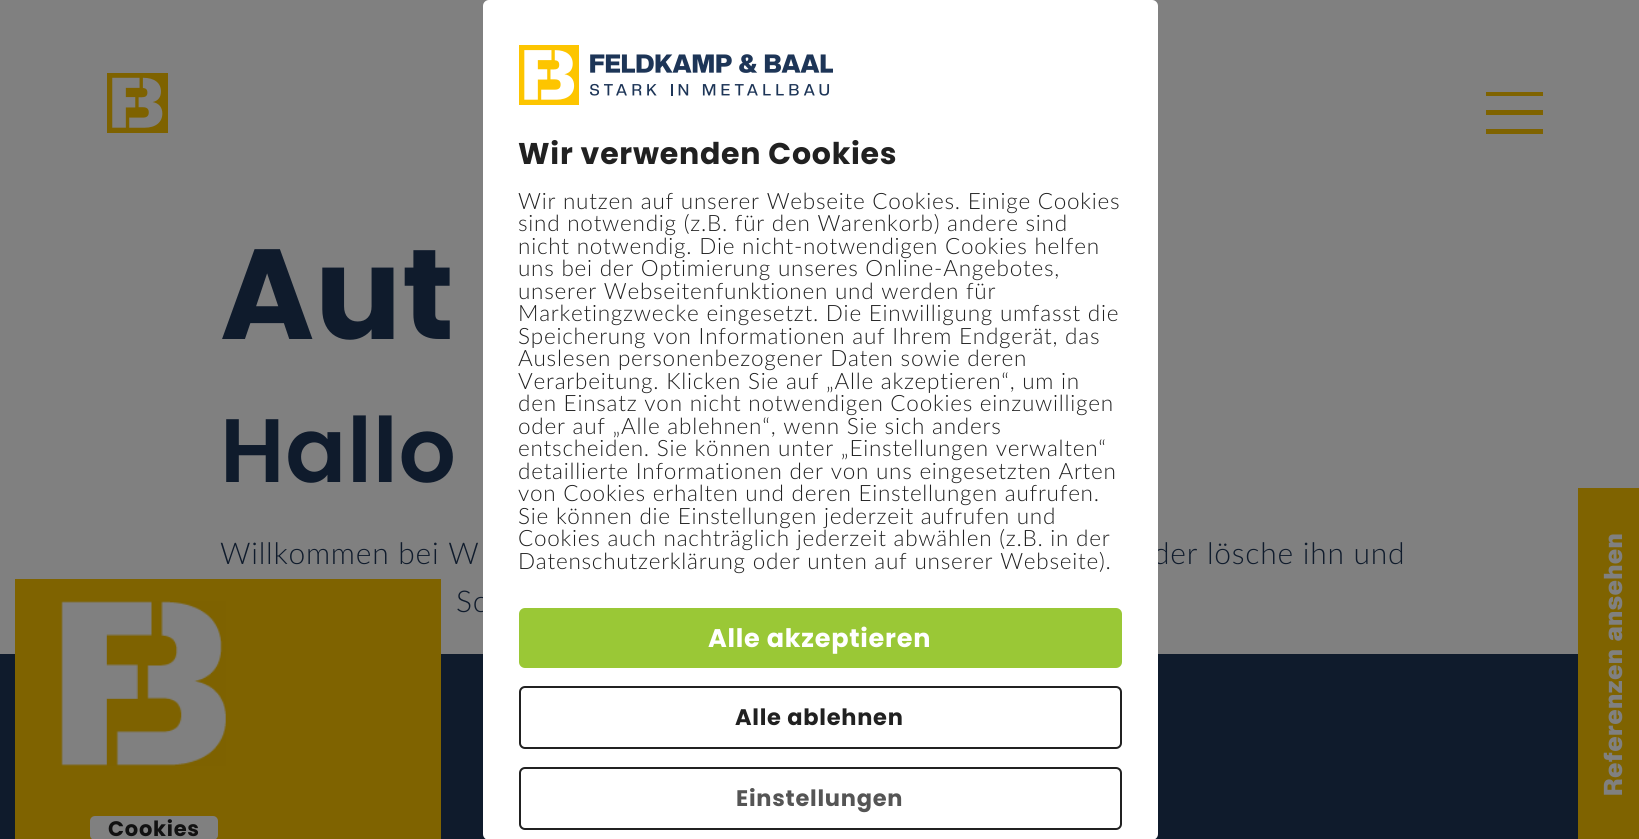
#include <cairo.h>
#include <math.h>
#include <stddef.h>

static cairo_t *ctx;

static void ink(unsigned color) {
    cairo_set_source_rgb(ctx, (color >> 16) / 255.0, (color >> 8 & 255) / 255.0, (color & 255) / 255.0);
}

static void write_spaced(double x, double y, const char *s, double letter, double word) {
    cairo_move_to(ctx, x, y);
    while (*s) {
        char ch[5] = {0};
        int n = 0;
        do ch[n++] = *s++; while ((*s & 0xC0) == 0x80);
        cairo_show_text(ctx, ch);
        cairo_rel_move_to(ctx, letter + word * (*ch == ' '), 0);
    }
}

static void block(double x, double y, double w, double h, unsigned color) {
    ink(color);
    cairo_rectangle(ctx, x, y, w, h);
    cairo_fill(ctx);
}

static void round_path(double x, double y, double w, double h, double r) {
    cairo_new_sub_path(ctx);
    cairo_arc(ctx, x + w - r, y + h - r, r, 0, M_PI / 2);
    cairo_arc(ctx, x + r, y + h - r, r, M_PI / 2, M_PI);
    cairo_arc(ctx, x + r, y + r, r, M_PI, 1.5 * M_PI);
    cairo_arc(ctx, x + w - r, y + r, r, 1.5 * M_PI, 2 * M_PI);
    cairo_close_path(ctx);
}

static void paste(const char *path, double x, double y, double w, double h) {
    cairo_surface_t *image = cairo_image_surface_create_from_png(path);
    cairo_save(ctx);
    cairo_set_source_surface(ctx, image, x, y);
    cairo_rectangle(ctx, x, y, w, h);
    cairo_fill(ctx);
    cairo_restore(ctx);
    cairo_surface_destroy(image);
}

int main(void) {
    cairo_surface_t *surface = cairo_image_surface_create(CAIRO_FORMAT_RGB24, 1639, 839);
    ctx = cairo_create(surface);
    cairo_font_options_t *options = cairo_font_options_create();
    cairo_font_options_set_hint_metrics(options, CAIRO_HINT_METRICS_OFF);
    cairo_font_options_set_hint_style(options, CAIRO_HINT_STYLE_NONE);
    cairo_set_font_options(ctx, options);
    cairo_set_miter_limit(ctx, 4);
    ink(0x808080);
    cairo_paint(ctx);
    paste("pic1.png", 107, 73, 61, 60);
    ink(0x7f6300);
    cairo_new_path(ctx);
    cairo_move_to(ctx, 1486, 92);
    cairo_line_to(ctx, 1486, 96);
    cairo_line_to(ctx, 1543, 96);
    cairo_line_to(ctx, 1543, 92);
    cairo_close_path(ctx);
    cairo_move_to(ctx, 1486, 110);
    cairo_line_to(ctx, 1486, 115);
    cairo_line_to(ctx, 1543, 115);
    cairo_line_to(ctx, 1543, 110);
    cairo_close_path(ctx);
    cairo_move_to(ctx, 1486, 129);
    cairo_line_to(ctx, 1486, 134);
    cairo_line_to(ctx, 1543, 134);
    cairo_line_to(ctx, 1543, 129);
    cairo_close_path(ctx);
    cairo_fill(ctx);
    cairo_select_font_face(ctx, "Lato Light", CAIRO_FONT_SLANT_NORMAL, CAIRO_FONT_WEIGHT_NORMAL);
    cairo_set_font_size(ctx, 30);
    ink(0x0f1b2c);
    write_spaced(1153, 564, "der lösche ihn und", 0.75, 0);
    write_spaced(456, 612, "Sc", 0.75, 0);
    block(0, 654, 1578, 185, 0x0f1b2c);
    ink(0xffffff);
    round_path(483, 0, 675, 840, 6);
    cairo_fill(ctx);
    paste("pic2.png", 519, 45, 314, 60);
    cairo_select_font_face(ctx, "Poppins", CAIRO_FONT_SLANT_NORMAL, CAIRO_FONT_WEIGHT_BOLD);
    ink(0x212121);
    write_spaced(518, 164, "Wir verwenden Cookies", 0.75, 0);
    cairo_select_font_face(ctx, "Lato Light", CAIRO_FONT_SLANT_NORMAL, CAIRO_FONT_WEIGHT_NORMAL);
    cairo_set_font_size(ctx, 22.5);
    write_spaced(518, 209, "Wir nutzen auf unserer Webseite Cookies. Einige Cookies", 0.75, 0);
    write_spaced(518, 231, "sind notwendig (z.B. für den Warenkorb) andere sind", 0.75, 0);
    write_spaced(518, 254, "nicht notwendig. Die nicht-notwendigen Cookies helfen", 0.75, 0);
    write_spaced(518, 276, "uns bei der Optimierung unseres Online-Angebotes,", 0.75, 0);
    write_spaced(518, 299, "unserer Webseitenfunktionen und werden für", 0.75, 0);
    write_spaced(518, 321, "Marketingzwecke eingesetzt. Die Einwilligung umfasst die", 0.75, 0);
    write_spaced(518, 344, "Speicherung von Informationen auf Ihrem Endgerät, das", 0.75, 0);
    write_spaced(518, 366, "Auslesen personenbezogener Daten sowie deren", 0.75, 0);
    write_spaced(518, 389, "Verarbeitung. Klicken Sie auf „Alle akzeptieren“, um in", 0.75, 0);
    write_spaced(518, 411, "den Einsatz von nicht notwendigen Cookies einzuwilligen", 0.75, 0);
    write_spaced(518, 434, "oder auf „Alle ablehnen“, wenn Sie sich anders", 0.75, 0);
    write_spaced(518, 456, "entscheiden. Sie können unter „Einstellungen verwalten“", 0.75, 0);
    write_spaced(518, 479, "detaillierte Informationen der von uns eingesetzten Arten", 0.75, 0);
    write_spaced(518, 501, "von Cookies erhalten und deren Einstellungen aufrufen.", 0.75, 0);
    write_spaced(518, 524, "Sie können die Einstellungen jederzeit aufrufen und", 0.75, 0);
    write_spaced(518, 546, "Cookies auch nachträglich jederzeit abwählen (z.B. in der", 0.75, 0);
    write_spaced(518, 569, "Datenschutzerklärung oder unten auf unserer Webseite).", 0.75, 0);
    ink(0x9ac836);
    round_path(519, 608, 603, 60, 6);
    cairo_fill(ctx);
    cairo_select_font_face(ctx, "Poppins", CAIRO_FONT_SLANT_NORMAL, CAIRO_FONT_WEIGHT_BOLD);
    cairo_set_font_size(ctx, 25.5);
    ink(0xffffff);
    write_spaced(708, 647, "Alle akzeptieren", 0.75, 0);
    round_path(520, 687, 601, 61, 5);
    ink(0x212121);
    cairo_stroke(ctx);
    cairo_set_font_size(ctx, 22.5);
    write_spaced(735, 725, "Alle ablehnen", 0.75, 0);
    round_path(520, 768, 601, 61, 5);
    cairo_stroke(ctx);
    ink(0x555555);
    write_spaced(736, 806, "Einstellungen", 0.75, 0);
    cairo_set_font_size(ctx, 128);
    ink(0x0f1b2c);
    write_spaced(220, 339, "Aut", 0.75, 0);
    cairo_select_font_face(ctx, "Poppins SemiBold", CAIRO_FONT_SLANT_NORMAL, CAIRO_FONT_WEIGHT_NORMAL);
    cairo_set_font_size(ctx, 90);
    write_spaced(220, 482, "Hallo", 0.75, 0);
    cairo_select_font_face(ctx, "Lato Light", CAIRO_FONT_SLANT_NORMAL, CAIRO_FONT_WEIGHT_NORMAL);
    cairo_set_font_size(ctx, 30);
    write_spaced(220, 564, "Willkommen bei W", 0.75, 0);
    block(15, 579, 426, 260, 0x7f6300);
    paste("pic3.png", 61, 601, 165, 165);
    block(1578, 488, 61, 351, 0x7f6300);
    cairo_select_font_face(ctx, "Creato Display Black", CAIRO_FONT_SLANT_NORMAL, CAIRO_FONT_WEIGHT_NORMAL);
    cairo_set_font_size(ctx, 25.5);
    ink(0x808080);
    cairo_save(ctx);
    cairo_translate(ctx, 1622, 796);
    cairo_rotate(ctx, -90 * M_PI / 180);
    write_spaced(0, 0, "Referenzen ansehen", 0.75, 0);
    cairo_restore(ctx);
    round_path(90, 816, 128, 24, 5);
    cairo_fill(ctx);
    cairo_select_font_face(ctx, "Poppins", CAIRO_FONT_SLANT_NORMAL, CAIRO_FONT_WEIGHT_BOLD);
    cairo_set_font_size(ctx, 21);
    ink(0x111111);
    write_spaced(108, 836, "Cookies", 0.75, 0);
    cairo_surface_write_to_png(surface, "screenshot.png");
    cairo_font_options_destroy(options);
    cairo_destroy(ctx);
    cairo_surface_destroy(surface);
    return 0;
}
